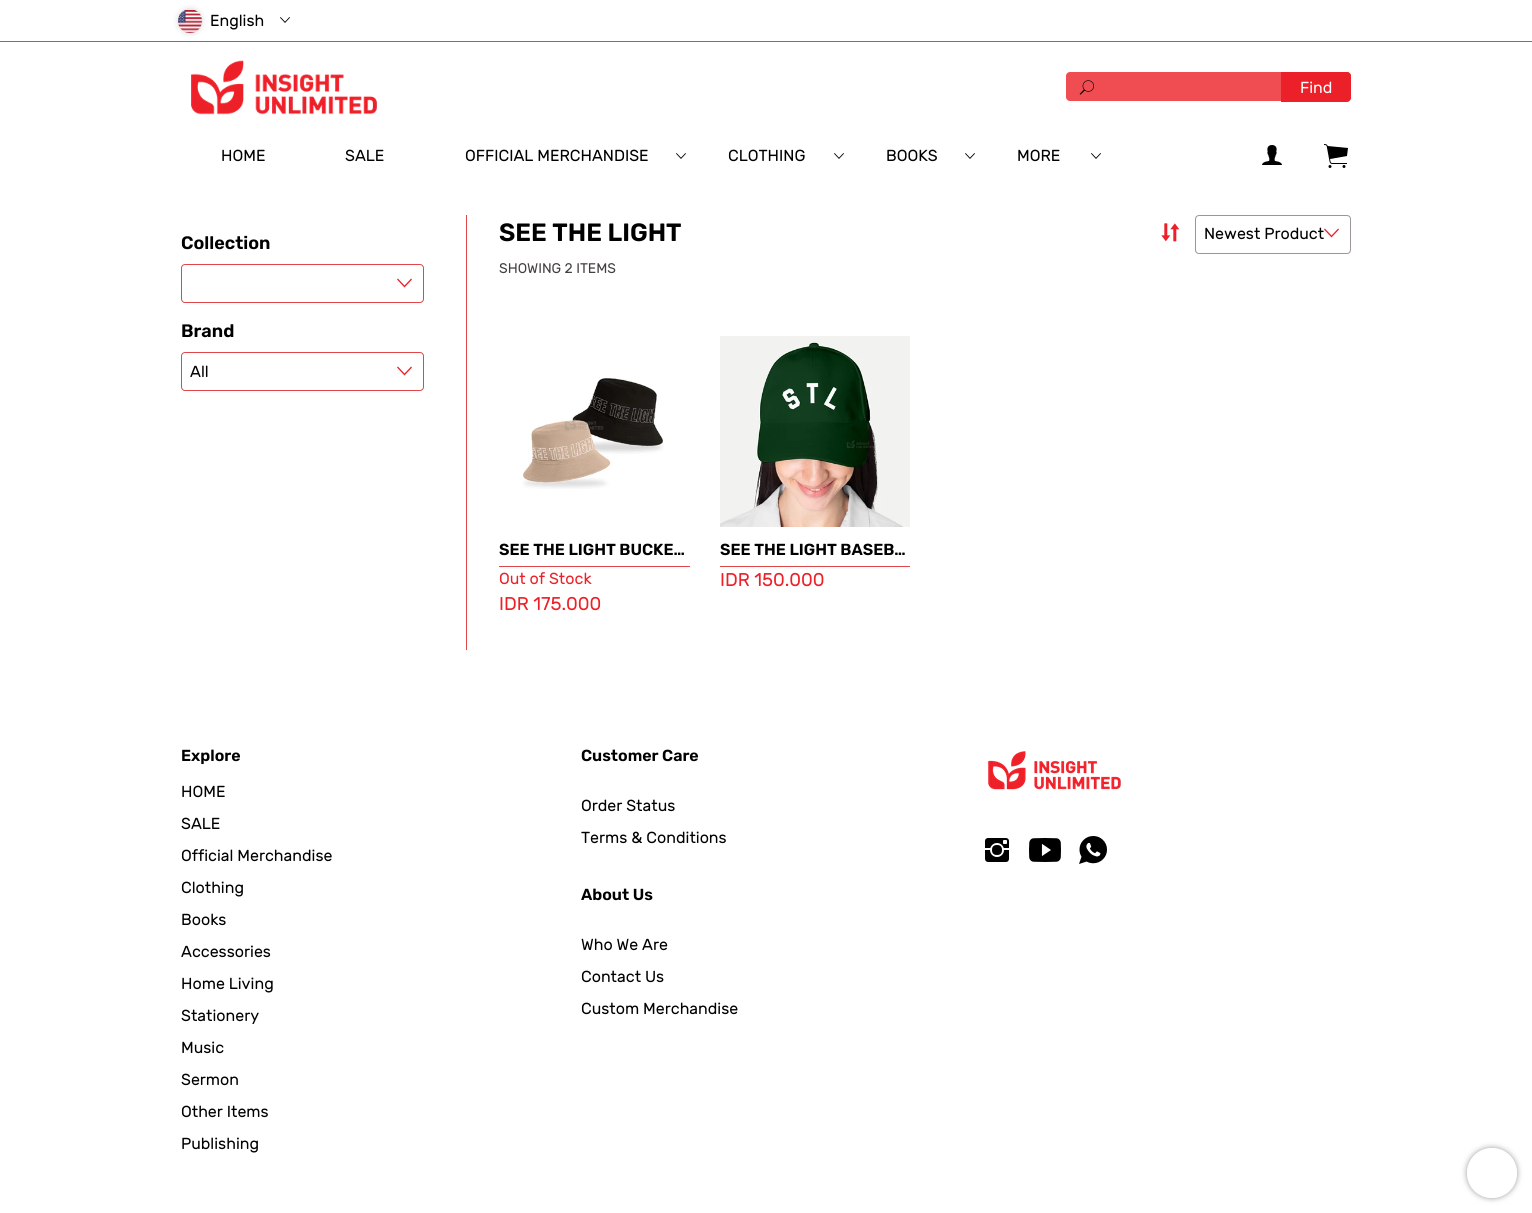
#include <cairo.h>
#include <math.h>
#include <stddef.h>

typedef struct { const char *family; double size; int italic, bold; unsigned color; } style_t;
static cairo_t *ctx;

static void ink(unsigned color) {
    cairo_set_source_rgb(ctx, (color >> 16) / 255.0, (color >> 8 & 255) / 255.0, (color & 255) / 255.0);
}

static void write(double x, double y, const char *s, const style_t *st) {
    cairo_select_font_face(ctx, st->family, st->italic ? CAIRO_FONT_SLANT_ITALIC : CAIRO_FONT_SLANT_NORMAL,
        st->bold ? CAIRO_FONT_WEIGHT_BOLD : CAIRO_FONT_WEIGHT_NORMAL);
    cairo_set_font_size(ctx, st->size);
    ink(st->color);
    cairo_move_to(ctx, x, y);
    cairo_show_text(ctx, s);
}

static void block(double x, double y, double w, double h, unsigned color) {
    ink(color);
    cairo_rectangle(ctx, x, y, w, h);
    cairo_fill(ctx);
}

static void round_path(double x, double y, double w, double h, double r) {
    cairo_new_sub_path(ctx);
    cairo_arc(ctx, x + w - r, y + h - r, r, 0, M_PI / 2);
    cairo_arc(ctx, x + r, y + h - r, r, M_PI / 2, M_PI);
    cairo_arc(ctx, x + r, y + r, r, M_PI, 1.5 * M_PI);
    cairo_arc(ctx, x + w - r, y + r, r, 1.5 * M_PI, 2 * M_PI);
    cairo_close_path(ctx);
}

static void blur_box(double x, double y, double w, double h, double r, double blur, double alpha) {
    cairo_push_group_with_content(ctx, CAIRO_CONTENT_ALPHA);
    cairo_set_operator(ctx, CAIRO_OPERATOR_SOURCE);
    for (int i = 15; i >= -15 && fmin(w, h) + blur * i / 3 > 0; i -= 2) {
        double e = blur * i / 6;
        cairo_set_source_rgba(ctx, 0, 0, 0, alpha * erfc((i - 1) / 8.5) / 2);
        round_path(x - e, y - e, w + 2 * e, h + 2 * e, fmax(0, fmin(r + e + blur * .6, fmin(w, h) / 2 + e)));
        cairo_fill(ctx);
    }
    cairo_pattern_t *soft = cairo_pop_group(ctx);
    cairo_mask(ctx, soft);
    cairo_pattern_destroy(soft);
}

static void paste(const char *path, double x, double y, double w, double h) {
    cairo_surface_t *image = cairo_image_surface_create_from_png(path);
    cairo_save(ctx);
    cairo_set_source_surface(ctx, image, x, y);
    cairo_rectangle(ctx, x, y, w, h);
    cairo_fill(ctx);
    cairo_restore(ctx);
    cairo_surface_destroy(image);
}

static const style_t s1 = {"Rubik", 16, 0, 0, 0x000000};
static const style_t s2 = {"Rubik", 16, 0, 0, 0xffffff};
static const style_t s3 = {"Rubik SemiBold", 18, 0, 0, 0x000000};
static const style_t s4 = {"Rubik SemiBold", 25, 0, 0, 0x000000};
static const style_t s5 = {"Rubik", 14, 0, 0, 0x454040};
static const style_t s6 = {"Rubik SemiBold", 16, 0, 0, 0x000000};
static const style_t s7 = {"Rubik", 16, 0, 0, 0xec2028};
static const style_t s8 = {"Rubik", 18.5, 0, 0, 0xec2028};

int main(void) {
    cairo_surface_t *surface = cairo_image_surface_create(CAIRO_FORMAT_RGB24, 1532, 1213);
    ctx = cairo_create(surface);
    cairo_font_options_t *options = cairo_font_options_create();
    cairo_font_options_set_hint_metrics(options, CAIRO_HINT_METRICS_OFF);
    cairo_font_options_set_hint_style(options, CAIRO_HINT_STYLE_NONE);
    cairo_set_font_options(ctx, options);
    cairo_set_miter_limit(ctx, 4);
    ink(0xffffff);
    cairo_paint(ctx);
    block(0, 41, 1532, 1, 0xe04749);
    ink(0x000000);
    blur_box(178, 9, 24, 24, 12, 3, 0.15);
    paste("pic1.png", 178, 10, 24, 23);
    write(210, 26, "English", &s1);
    paste("pic2.png", 280, 17, 10, 6);
    paste("pic3.png", 191, 60, 186, 55);
    ink(0xf04d53);
    round_path(1066, 72, 285, 29, 4);
    cairo_fill(ctx);
    paste("pic4.png", 1079, 80, 15, 15);
    ink(0xec2028);
    cairo_new_path(ctx);
    cairo_move_to(ctx, 1281, 72);
    cairo_line_to(ctx, 1347, 72);
    cairo_curve_to(ctx, 1349, 72, 1351, 74, 1351, 76);
    cairo_line_to(ctx, 1351, 98);
    cairo_curve_to(ctx, 1351, 100, 1349, 102, 1347, 102);
    cairo_line_to(ctx, 1281, 102);
    cairo_close_path(ctx);
    cairo_fill(ctx);
    write(1300, 93, "Find", &s2);
    write(221, 161, "HOME", &s1);
    write(345, 161, "SALE", &s1);
    write(465, 161, "OFFICIAL MERCHANDISE", &s1);
    paste("pic2.png", 676, 153, 10, 6);
    write(728, 161, "CLOTHING", &s1);
    paste("pic2.png", 834, 153, 10, 6);
    write(886, 161, "BOOKS", &s1);
    paste("pic2.png", 965, 153, 10, 6);
    write(1017, 161, "MORE", &s1);
    paste("pic2.png", 1091, 153, 10, 6);
    paste("pic5.png", 1262, 145, 20, 20);
    paste("pic6.png", 1324, 144, 24, 24);
    write(181, 249, "Collection", &s3);
    round_path(181.5, 264.5, 242, 38, 3.5);
    ink(0xe04749);
    cairo_set_line_width(ctx, 1);
    cairo_stroke(ctx);
    paste("pic7.png", 397, 278, 15, 10);
    write(181, 337, "Brand", &s3);
    round_path(181.5, 352.5, 242, 38, 3.5);
    ink(0xe04749);
    cairo_stroke(ctx);
    write(190, 377, "All", &s1);
    paste("pic7.png", 397, 366, 15, 10);
    block(466, 215, 1, 435, 0xe04749);
    write(499, 241, "SEE THE LIGHT", &s4);
    write(499, 273, "SHOWING 2 ITEMS", &s5);
    paste("pic8.png", 1161, 223, 19, 19);
    round_path(1195.5, 215.5, 155, 38, 3.5);
    ink(0x9d9696);
    cairo_stroke(ctx);
    write(1204, 239, "Newest Product", &s1);
    paste("pic7.png", 1324, 228, 15, 10);
    paste("pic9.png", 522, 378, 142, 111);
    block(499, 566, 191, 1, 0xe04749);
    write(499, 555, "SEE THE LIGHT BUCKE…", &s6);
    write(499, 584, "Out of Stock", &s7);
    write(499, 610, "IDR 175.000", &s8);
    paste("pic10.png", 720, 336, 190, 191);
    block(720, 566, 190, 1, 0xe04749);
    write(720, 555, "SEE THE LIGHT BASEB…", &s6);
    write(720, 586, "IDR 150.000", &s8);
    write(181, 761, "Explore", &s6);
    write(181, 797, "HOME", &s1);
    write(181, 829, "SALE", &s1);
    write(181, 861, "Official Merchandise", &s1);
    write(181, 893, "Clothing", &s1);
    write(181, 925, "Books", &s1);
    write(181, 957, "Accessories", &s1);
    write(181, 989, "Home Living", &s1);
    write(181, 1021, "Stationery", &s1);
    write(181, 1053, "Music", &s1);
    write(181, 1085, "Sermon", &s1);
    write(181, 1117, "Other Items", &s1);
    write(181, 1149, "Publishing", &s1);
    write(581, 761, "Customer Care", &s6);
    write(581, 811, "Order Status", &s1);
    write(581, 843, "Terms & Conditions", &s1);
    write(581, 900, "About Us", &s6);
    write(581, 950, "Who We Are", &s1);
    write(581, 982, "Contact Us", &s1);
    write(581, 1014, "Custom Merchandise", &s1);
    paste("pic11.png", 988, 751, 133, 39);
    paste("pic12.png", 985, 838, 24, 24);
    paste("pic13.png", 1029, 838, 32, 24);
    paste("pic14.png", 1079, 836, 28, 28);
    cairo_save(ctx);
    cairo_set_fill_rule(ctx, CAIRO_FILL_RULE_EVEN_ODD);
    cairo_new_path(ctx);
    cairo_move_to(ctx, 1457, 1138);
    cairo_line_to(ctx, 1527, 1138);
    cairo_line_to(ctx, 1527, 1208);
    cairo_line_to(ctx, 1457, 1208);
    cairo_close_path(ctx);
    cairo_move_to(ctx, 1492, 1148);
    cairo_curve_to(ctx, 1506, 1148, 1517, 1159, 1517, 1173);
    cairo_curve_to(ctx, 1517, 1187, 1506, 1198, 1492, 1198);
    cairo_curve_to(ctx, 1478, 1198, 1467, 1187, 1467, 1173);
    cairo_curve_to(ctx, 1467, 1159, 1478, 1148, 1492, 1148);
    cairo_close_path(ctx);
    cairo_clip(ctx);
    ink(0x000000);
    blur_box(1467, 1148, 50, 50, 25, 3, 0.4);
    cairo_restore(ctx);
    cairo_surface_write_to_png(surface, "screenshot.png");
    cairo_font_options_destroy(options);
    cairo_destroy(ctx);
    cairo_surface_destroy(surface);
    return 0;
}
